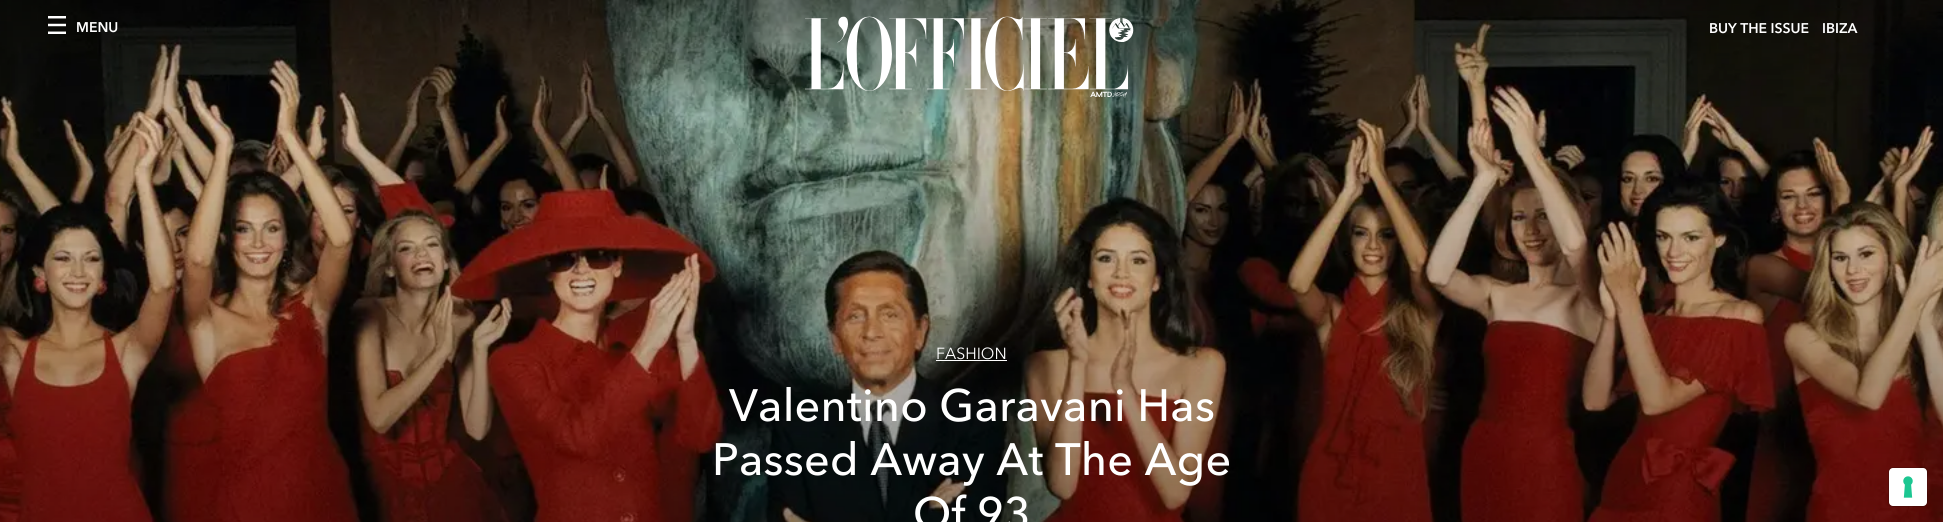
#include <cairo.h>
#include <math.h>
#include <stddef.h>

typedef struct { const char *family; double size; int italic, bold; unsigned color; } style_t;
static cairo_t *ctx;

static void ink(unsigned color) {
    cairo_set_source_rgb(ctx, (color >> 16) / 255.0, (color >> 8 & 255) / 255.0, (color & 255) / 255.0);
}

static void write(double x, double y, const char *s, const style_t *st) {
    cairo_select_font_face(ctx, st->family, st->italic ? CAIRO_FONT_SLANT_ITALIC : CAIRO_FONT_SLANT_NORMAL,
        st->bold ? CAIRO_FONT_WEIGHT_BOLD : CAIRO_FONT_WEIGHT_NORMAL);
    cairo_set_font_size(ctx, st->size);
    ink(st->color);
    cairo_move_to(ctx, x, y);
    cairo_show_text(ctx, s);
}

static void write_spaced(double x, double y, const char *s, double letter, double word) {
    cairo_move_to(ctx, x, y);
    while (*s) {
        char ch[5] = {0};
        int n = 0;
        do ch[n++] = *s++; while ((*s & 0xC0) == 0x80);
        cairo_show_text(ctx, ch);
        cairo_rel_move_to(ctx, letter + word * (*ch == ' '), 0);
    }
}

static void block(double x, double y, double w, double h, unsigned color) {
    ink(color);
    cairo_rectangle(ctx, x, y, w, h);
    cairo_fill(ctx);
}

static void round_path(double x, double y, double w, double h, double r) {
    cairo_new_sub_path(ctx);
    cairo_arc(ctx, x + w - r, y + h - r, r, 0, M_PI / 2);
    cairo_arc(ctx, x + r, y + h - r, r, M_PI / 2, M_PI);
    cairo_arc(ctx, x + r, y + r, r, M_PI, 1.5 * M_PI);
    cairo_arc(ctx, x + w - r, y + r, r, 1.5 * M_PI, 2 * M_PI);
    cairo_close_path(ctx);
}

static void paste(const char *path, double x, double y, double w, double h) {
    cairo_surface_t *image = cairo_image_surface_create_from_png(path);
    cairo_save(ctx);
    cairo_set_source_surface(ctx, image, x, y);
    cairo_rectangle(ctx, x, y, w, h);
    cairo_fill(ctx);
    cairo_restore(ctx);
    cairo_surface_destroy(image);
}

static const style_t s1 = {"Avenir Next", 14, 0, 1, 0xffffff};
static const style_t s2 = {"Avenir Next", 16, 0, 0, 0xffffff};

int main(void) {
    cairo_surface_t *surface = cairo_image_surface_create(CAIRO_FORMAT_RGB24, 1943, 522);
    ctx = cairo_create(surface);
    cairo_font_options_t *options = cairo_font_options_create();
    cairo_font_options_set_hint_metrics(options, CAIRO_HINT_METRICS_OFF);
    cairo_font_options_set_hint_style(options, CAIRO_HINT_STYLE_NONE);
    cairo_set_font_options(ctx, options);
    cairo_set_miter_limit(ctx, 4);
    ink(0xffffff);
    cairo_paint(ctx);
    paste("pic3.png", 0, 0, 1943, 522);
    paste("pic1.png", 48, 16, 18, 18);
    write(76, 32, "MENU", &s1);
    paste("pic2.png", 805, 16, 329, 82);
    write(1709, 33, "BUY THE ISSUE", &s1);
    write(1822, 33, "IBIZA", &s1);
    write(936, 359, "FASHION", &s2);
    block(936, 360, 71, 1, 0xffffff);
    cairo_select_font_face(ctx, "Avenir Next Medium", CAIRO_FONT_SLANT_NORMAL, CAIRO_FONT_WEIGHT_NORMAL);
    cairo_set_font_size(ctx, 45);
    write_spaced(729, 421, "Valentino Garavani Has", 0.2, 0);
    write_spaced(712, 475, "Passed Away At The Age", 0.2, 0);
    write_spaced(913, 529, "Of 93", 0.2, 0);
    round_path(1888.5, 467.5, 39, 39, 4.5);
    cairo_set_source_rgba(ctx, 0, 0, 0, 0.15);
    cairo_set_line_width(ctx, 1);
    cairo_stroke(ctx);
    ink(0xffffff);
    round_path(1889, 468, 38, 38, 4);
    cairo_fill(ctx);
    paste("pic4.png", 1903, 476, 10, 22);
    cairo_surface_write_to_png(surface, "screenshot.png");
    cairo_font_options_destroy(options);
    cairo_destroy(ctx);
    cairo_surface_destroy(surface);
    return 0;
}
